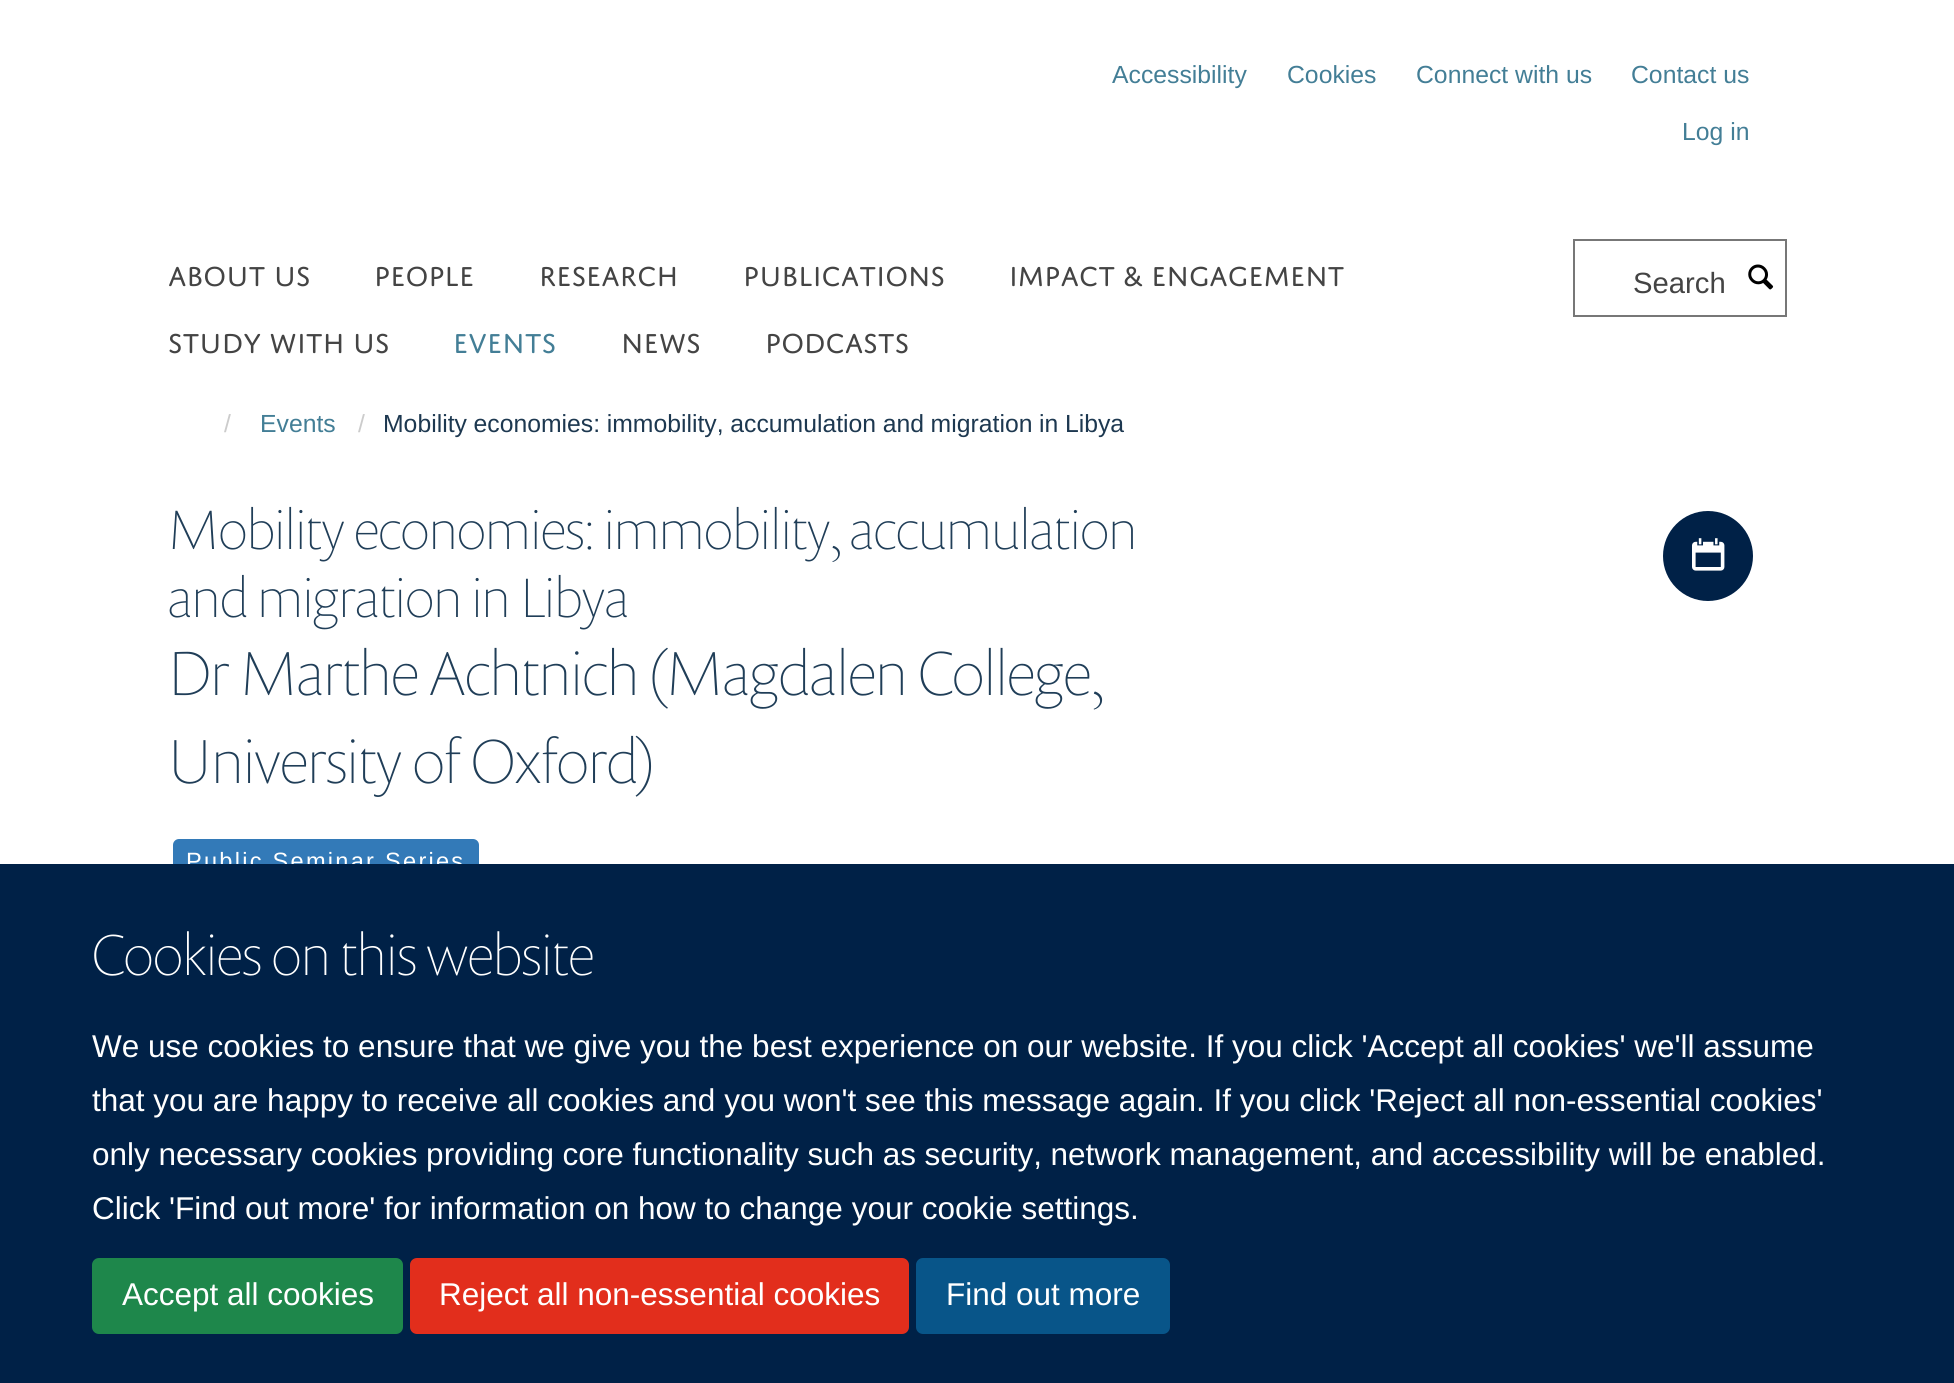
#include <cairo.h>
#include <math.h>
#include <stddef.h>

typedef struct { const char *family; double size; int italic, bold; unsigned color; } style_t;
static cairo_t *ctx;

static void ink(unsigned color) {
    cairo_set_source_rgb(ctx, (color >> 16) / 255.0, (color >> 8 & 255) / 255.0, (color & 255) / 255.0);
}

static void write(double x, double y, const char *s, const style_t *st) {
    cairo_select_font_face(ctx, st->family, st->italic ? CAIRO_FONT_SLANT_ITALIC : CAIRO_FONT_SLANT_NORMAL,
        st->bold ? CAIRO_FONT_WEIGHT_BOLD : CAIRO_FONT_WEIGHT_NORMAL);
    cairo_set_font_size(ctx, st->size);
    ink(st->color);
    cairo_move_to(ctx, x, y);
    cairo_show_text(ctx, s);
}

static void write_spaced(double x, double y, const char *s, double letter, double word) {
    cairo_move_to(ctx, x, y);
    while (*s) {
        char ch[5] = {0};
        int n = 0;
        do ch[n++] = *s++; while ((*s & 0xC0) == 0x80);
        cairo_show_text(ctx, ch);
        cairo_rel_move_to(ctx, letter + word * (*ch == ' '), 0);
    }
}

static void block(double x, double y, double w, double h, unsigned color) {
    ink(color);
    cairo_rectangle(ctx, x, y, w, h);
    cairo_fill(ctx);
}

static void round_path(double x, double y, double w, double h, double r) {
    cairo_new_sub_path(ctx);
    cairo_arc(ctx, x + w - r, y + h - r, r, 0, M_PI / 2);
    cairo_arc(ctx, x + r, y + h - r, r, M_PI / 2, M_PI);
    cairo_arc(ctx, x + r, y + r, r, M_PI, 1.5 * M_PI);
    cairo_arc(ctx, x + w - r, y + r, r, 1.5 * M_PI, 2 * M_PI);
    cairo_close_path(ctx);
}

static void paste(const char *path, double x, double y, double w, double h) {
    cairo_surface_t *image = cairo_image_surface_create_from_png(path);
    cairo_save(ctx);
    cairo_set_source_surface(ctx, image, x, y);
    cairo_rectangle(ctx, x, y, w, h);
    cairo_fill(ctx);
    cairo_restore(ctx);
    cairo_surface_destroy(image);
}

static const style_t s1 = {"Liberation Sans", 24.75, 0, 0, 0x437e96};
static const style_t s2 = {"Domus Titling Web", 29.25, 0, 0, 0x444444};
static const style_t s3 = {"Domus Titling Web", 29.25, 0, 0, 0x437e96};
static const style_t s4 = {"Liberation Sans", 29.25, 0, 0, 0x444444};
static const style_t s5 = {"Liberation Sans", 24.75, 0, 0, 0xcccccc};
static const style_t s6 = {"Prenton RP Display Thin", 56.25, 0, 0, 0x203e58};
static const style_t s7 = {"Prenton RP Display Thin", 63, 0, 0, 0x203e58};
static const style_t s8 = {"Prenton RP Display Thin", 58.5, 0, 0, 0xffffff};
static const style_t s9 = {"Liberation Sans", 31.5, 0, 0, 0xffffff};

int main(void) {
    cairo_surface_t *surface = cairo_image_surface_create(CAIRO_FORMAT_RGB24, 1954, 1383);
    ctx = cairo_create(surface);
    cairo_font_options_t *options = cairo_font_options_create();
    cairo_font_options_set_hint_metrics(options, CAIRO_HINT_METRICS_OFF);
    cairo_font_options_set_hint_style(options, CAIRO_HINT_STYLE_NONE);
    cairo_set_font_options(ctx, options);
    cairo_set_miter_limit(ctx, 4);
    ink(0xffffff);
    cairo_paint(ctx);
    write(1112, 83, "Accessibility", &s1);
    write(1287, 83, "Cookies", &s1);
    write(1416, 83, "Connect with us", &s1);
    write(1631, 83, "Contact us", &s1);
    write(1682, 140, "Log in", &s1);
    write(168, 286, "ABOUT US", &s2);
    write(374, 286, "PEOPLE", &s2);
    write(539, 286, "RESEARCH", &s2);
    write(743, 286, "PUBLICATIONS", &s2);
    write(1009, 286, "IMPACT & ENGAGEMENT", &s2);
    write(168, 353, "STUDY WITH US", &s2);
    write(453, 353, "EVENTS", &s3);
    write(621, 353, "NEWS", &s2);
    write(765, 353, "PODCASTS", &s2);
    cairo_rectangle(ctx, 1574, 240, 212, 76);
    ink(0x777777);
    cairo_stroke(ctx);
    write(1633, 293, "Search", &s4);
    paste("pic1.png", 1748, 264, 26, 26);
    write(224, 432, "/", &s5);
    write(260, 432, "Events", &s1);
    write(358, 432, "/", &s5);
    ink(0x1d3850);
    write_spaced(383, 432, "Mobility economies: immobility, accumulation and migration in Libya", 0, -0.25);
    write(168, 549, "Mobility economies: immobility, accumulation", &s6);
    write(168, 617, "and migration in Libya", &s6);
    write(168, 695, "Dr Marthe Achtnich (Magdalen College,", &s7);
    write(168, 783, "University of Oxford)", &s7);
    ink(0x337ab8);
    round_path(173, 839, 306, 45, 6);
    cairo_fill(ctx);
    cairo_select_font_face(ctx, "Liberation Sans", CAIRO_FONT_SLANT_NORMAL, CAIRO_FONT_WEIGHT_NORMAL);
    cairo_set_font_size(ctx, 23.6);
    ink(0xffffff);
    write_spaced(186, 869, "Public Seminar Series", 2.25, 0);
    ink(0x002147);
    cairo_new_path(ctx);
    cairo_arc(ctx, 1708, 556, 45, 0, 2 * M_PI);
    cairo_fill(ctx);
    paste("pic2.png", 1692, 538, 33, 33);
    block(0, 864, 1954, 519, 0x002147);
    write(92, 975, "Cookies on this website", &s8);
    write(92, 1057, "We use cookies to ensure that we give you the best experience on our website. If you click 'Accept all cookies' we'll assume", &s9);
    write(92, 1111, "that you are happy to receive all cookies and you won't see this message again. If you click 'Reject all non-essential cookies'", &s9);
    write_spaced(92, 1165, "only necessary cookies providing core functionality such as security, network management, and accessibility will be enabled.", 0, -0.1);
    write(92, 1219, "Click 'Find out more' for information on how to change your cookie settings.", &s9);
    ink(0x1e874b);
    round_path(93, 1259, 309, 74, 6);
    cairo_fill_preserve(ctx);
    cairo_stroke(ctx);
    write(122, 1305, "Accept all cookies", &s9);
    ink(0xe22e1c);
    round_path(411, 1259, 497, 74, 6);
    cairo_fill_preserve(ctx);
    cairo_stroke(ctx);
    write(439, 1305, "Reject all non-essential cookies", &s9);
    ink(0x085589);
    round_path(917, 1259, 252, 74, 6);
    cairo_fill_preserve(ctx);
    cairo_stroke(ctx);
    write(946, 1305, "Find out more", &s9);
    cairo_surface_write_to_png(surface, "screenshot.png");
    cairo_font_options_destroy(options);
    cairo_destroy(ctx);
    cairo_surface_destroy(surface);
    return 0;
}
